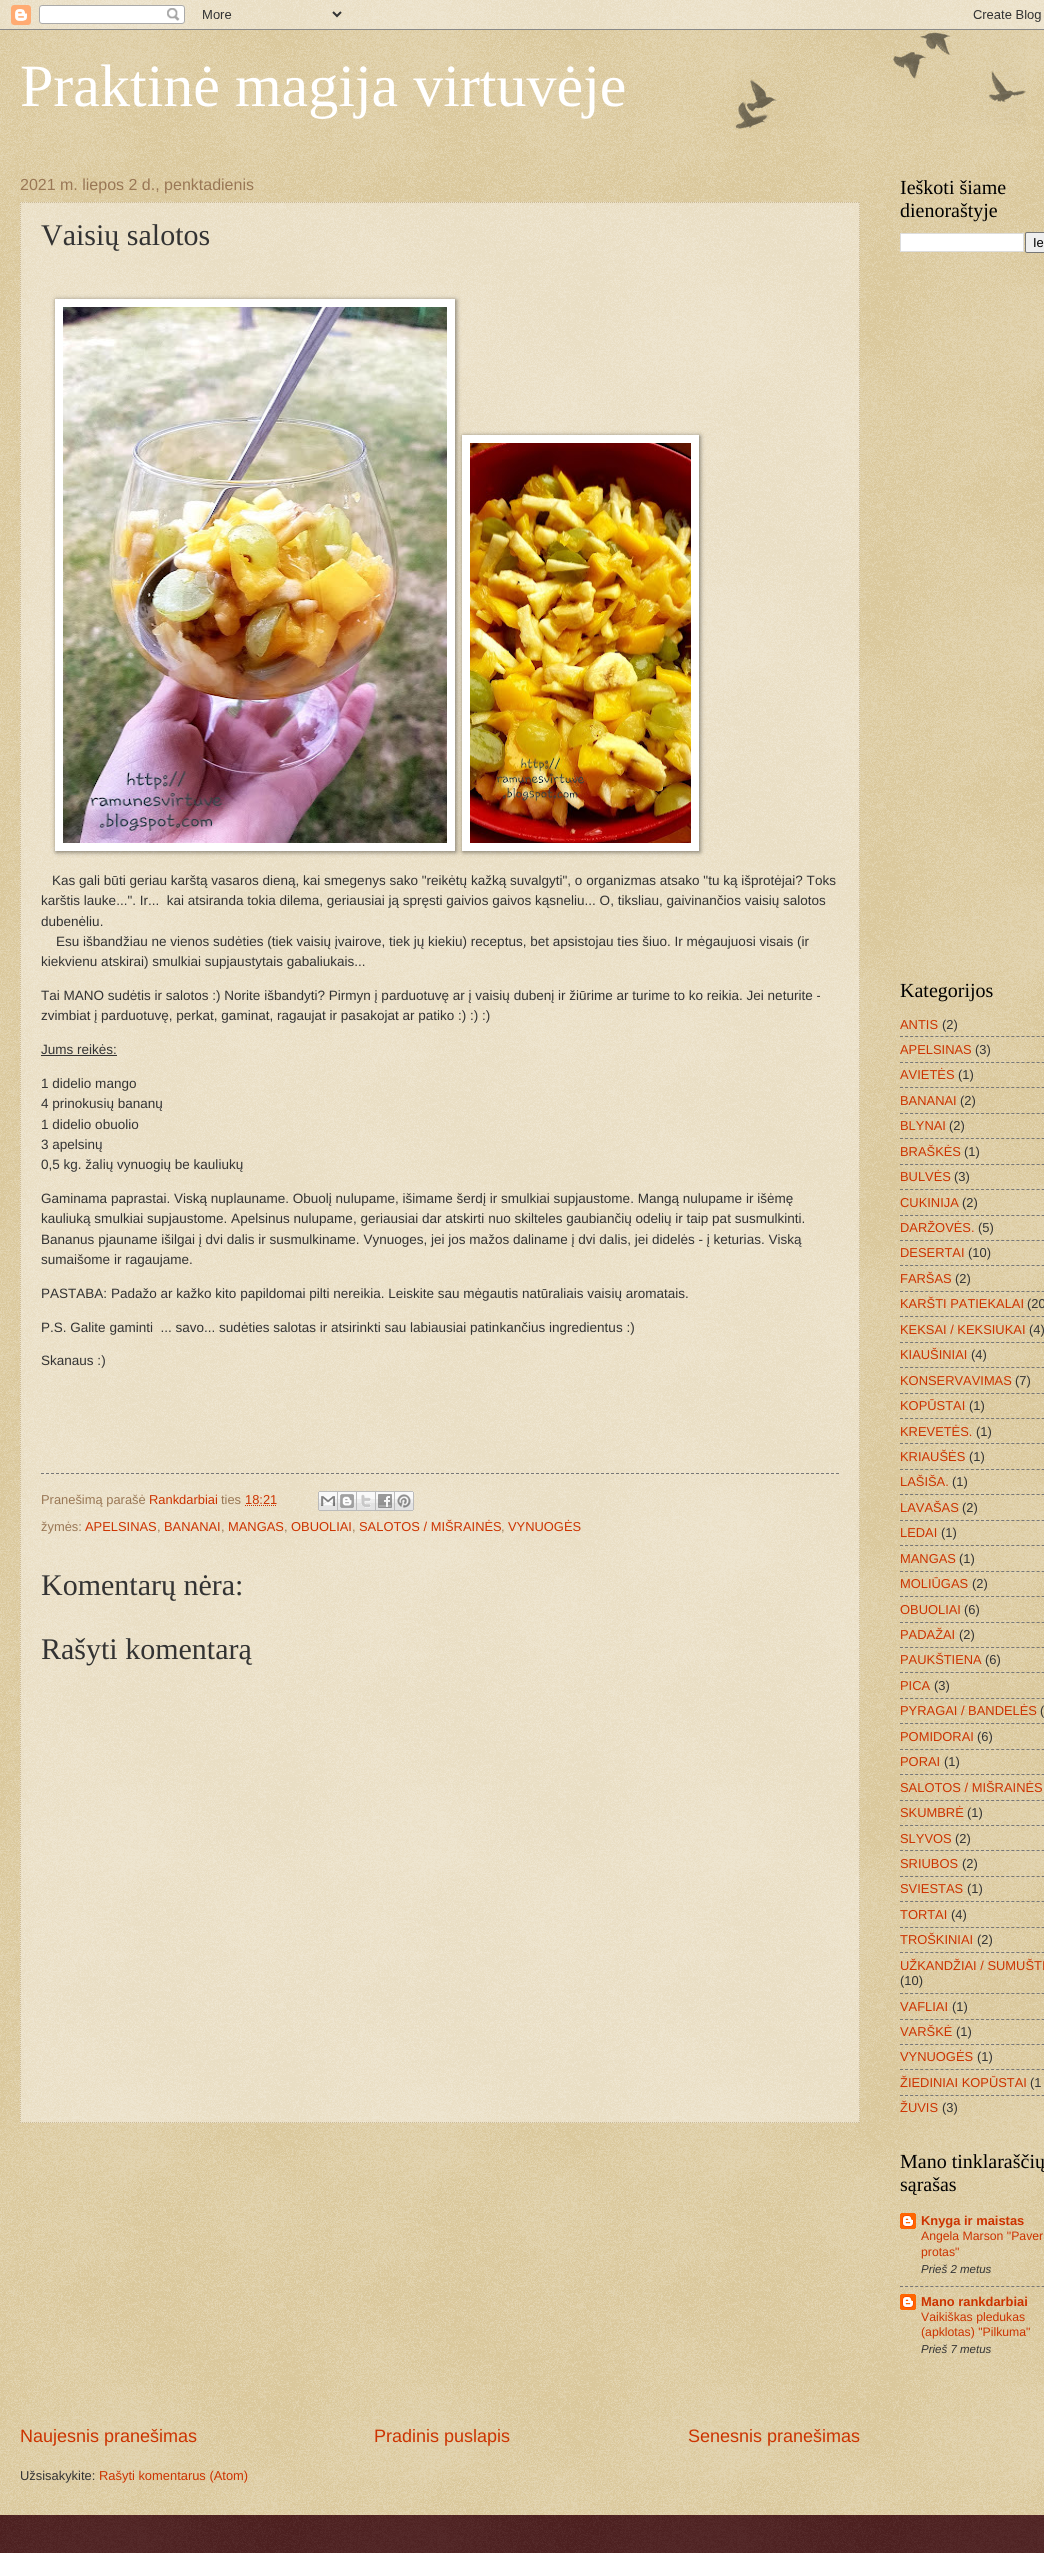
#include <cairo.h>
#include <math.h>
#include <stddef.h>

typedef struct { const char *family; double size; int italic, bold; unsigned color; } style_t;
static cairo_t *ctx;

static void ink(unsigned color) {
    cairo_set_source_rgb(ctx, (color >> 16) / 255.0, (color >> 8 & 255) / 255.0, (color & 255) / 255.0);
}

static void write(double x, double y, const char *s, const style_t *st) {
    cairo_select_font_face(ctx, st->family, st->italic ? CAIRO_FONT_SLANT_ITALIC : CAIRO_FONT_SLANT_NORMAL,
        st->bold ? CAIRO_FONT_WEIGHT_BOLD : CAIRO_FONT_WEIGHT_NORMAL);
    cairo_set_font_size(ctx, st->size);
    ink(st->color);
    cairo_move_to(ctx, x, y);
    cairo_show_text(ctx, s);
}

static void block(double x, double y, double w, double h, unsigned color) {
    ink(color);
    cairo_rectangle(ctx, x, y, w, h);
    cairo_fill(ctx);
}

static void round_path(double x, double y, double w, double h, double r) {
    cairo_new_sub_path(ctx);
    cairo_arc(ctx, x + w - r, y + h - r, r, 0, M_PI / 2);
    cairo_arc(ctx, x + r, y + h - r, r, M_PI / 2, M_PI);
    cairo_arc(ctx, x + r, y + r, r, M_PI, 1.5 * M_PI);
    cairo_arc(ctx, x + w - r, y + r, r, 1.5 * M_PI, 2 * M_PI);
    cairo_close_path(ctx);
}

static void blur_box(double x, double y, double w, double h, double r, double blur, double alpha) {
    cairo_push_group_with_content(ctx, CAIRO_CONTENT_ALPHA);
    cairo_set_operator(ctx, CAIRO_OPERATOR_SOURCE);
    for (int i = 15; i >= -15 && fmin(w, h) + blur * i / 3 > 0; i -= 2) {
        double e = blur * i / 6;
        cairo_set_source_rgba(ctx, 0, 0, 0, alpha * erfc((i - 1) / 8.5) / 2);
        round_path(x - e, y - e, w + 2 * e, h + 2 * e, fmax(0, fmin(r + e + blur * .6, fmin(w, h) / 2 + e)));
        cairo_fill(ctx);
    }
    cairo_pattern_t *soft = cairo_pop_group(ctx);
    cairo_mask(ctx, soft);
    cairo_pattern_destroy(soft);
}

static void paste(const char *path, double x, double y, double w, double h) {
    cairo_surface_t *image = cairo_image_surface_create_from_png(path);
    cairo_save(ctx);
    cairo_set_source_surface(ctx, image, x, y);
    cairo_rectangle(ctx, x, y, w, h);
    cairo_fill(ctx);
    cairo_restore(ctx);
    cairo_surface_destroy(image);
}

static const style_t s1 = {"Liberation Serif", 60, 0, 0, 0xffffff};
static const style_t s2 = {"Liberation Sans", 16, 0, 0, 0x997755};
static const style_t s3 = {"Liberation Serif", 30, 0, 0, 0x333333};
static const style_t s4 = {"Liberation Sans", 13.52, 0, 0, 0x333333};
static const style_t s5 = {"Liberation Sans", 12.9, 0, 0, 0x997755};
static const style_t s6 = {"Liberation Sans", 12.9, 0, 0, 0xcc3300};
static const style_t s7 = {"Liberation Sans", 18, 0, 0, 0xcc3300};
static const style_t s8 = {"Liberation Sans", 12.9, 0, 0, 0x333333};
static const style_t s9 = {"Liberation Serif", 20, 0, 0, 0x000000};
static const style_t s10 = {"Liberation Sans", 13, 0, 0, 0x000000};
static const style_t s11 = {"Liberation Sans", 12.9, 0, 1, 0xcc3300};
static const style_t s12 = {"Liberation Sans", 12.25, 0, 0, 0xcc3300};
static const style_t s13 = {"Liberation Sans", 11.5, 1, 0, 0x333333};

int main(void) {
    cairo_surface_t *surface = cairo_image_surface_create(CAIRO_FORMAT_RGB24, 1044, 2553);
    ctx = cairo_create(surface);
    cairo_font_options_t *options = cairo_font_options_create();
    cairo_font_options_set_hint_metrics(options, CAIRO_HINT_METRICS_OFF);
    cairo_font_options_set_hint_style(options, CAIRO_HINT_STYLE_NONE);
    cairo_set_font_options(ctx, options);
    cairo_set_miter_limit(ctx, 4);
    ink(0xc0a154);
    cairo_paint(ctx);
    paste("pic1.png", 0, 0, 1044, 2515);
    paste("pic2.png", 0, 0, 1044, 30);
    paste("pic3.png", 735, 32, 291, 97);
    write(20, 106, "Praktinė magija virtuvėje", &s1);
    write(20, 190, "2021 m. liepos 2 d., penktadienis", &s2);
    cairo_set_source_rgba(ctx, 1, 1, 1, 0.4);
    cairo_rectangle(ctx, 20, 202, 840, 1921);
    cairo_fill(ctx);
    cairo_new_path(ctx);
    cairo_move_to(ctx, 20, 202.5);
    cairo_line_to(ctx, 860, 202.5);
    ink(0xccbb99);
    cairo_set_line_width(ctx, 1);
    cairo_set_dash(ctx, (double[]){1, 1}, 2, 0);
    cairo_stroke(ctx);
    cairo_new_path(ctx);
    cairo_move_to(ctx, 859.5, 202);
    cairo_line_to(ctx, 859.5, 2123);
    cairo_stroke(ctx);
    cairo_new_path(ctx);
    cairo_move_to(ctx, 20, 2122.5);
    cairo_line_to(ctx, 860, 2122.5);
    cairo_stroke(ctx);
    cairo_new_path(ctx);
    cairo_move_to(ctx, 20.5, 202);
    cairo_line_to(ctx, 20.5, 2123);
    cairo_stroke(ctx);
    write(41, 245, "Vaisių salotos", &s3);
    ink(0x000000);
    blur_box(463, 436, 237, 416, 0, 2.5, 0.5);
    block(462, 435, 237, 416, 0xffffff);
    ink(0x000000);
    blur_box(56, 300, 400, 552, 0, 2.5, 0.5);
    block(55, 299, 400, 552, 0xffffff);
    paste("pic4.png", 63, 307, 384, 536);
    paste("pic5.png", 470, 443, 221, 400);
    write(52, 885, "Kas gali būti geriau karštą vasaros dieną, kai smegenys sako \"reikėtų kažką suvalgyti\", o organizmas atsako \"tu ką išprotėjai? Toks", &s4);
    write(41, 905, "karštis lauke...\". Ir...  kai atsiranda tokia dilema, geriausiai ją spręsti gaivios gaivos kąsneliu... O, tiksliau, gaivinančios vaisių salotos", &s4);
    write(41, 926, "dubenėliu.", &s4);
    write(56, 946, "Esu išbandžiau ne vienos sudėties (tiek vaisių įvairove, tiek jų kiekiu) receptus, bet apsistojau ties šiuo. Ir mėgaujuosi visais (ir", &s4);
    write(41, 966, "kiekvienu atskirai) smulkiai supjaustytais gabaliukais...", &s4);
    write(41, 1000, "Tai MANO sudėtis ir salotos :) Norite išbandyti? Pirmyn į parduotuvę ar į vaisių dubenį ir žiūrime ar turime to ko reikia. Jei neturite -", &s4);
    write(41, 1020, "zvimbiat į parduotuvę, perkat, gaminat, ragaujat ir pasakojat ar patiko :) :) :)", &s4);
    write(41, 1054, "Jums reikės:", &s4);
    block(41, 1055, 76, 1, 0x333333);
    write(41, 1088, "1 didelio mango", &s4);
    write(41, 1108, "4 prinokusių bananų", &s4);
    write(41, 1129, "1 didelio obuolio", &s4);
    write(41, 1149, "3 apelsinų", &s4);
    write(41, 1169, "0,5 kg. žalių vynuogių be kauliukų", &s4);
    write(41, 1203, "Gaminama paprastai. Viską nuplauname. Obuolį nulupame, išimame šerdį ir smulkiai supjaustome. Mangą nulupame ir išėmę", &s4);
    write(41, 1223, "kauliuką smulkiai supjaustome. Apelsinus nulupame, geriausiai dar atskirti nuo skilteles gaubiančių odelių ir taip pat susmulkinti.", &s4);
    write(41, 1244, "Bananus pjauname išilgai į dvi dalis ir susmulkiname. Vynuoges, jei jos mažos daliname į dvi dalis, jei didelės - į keturias. Viską", &s4);
    write(41, 1264, "sumaišome ir ragaujame.", &s4);
    write(41, 1298, "PASTABA: Padažo ar kažko kito papildomai pilti nereikia. Leiskite sau mėgautis natūraliais vaisių aromatais.", &s4);
    write(41, 1332, "P.S. Galite gaminti  ... savo... sudėties salotas ir atsirinkti sau labiausiai patinkančius ingredientus :)", &s4);
    write(41, 1365, "Skanaus :)", &s4);
    cairo_new_path(ctx);
    cairo_move_to(ctx, 41, 1473.5);
    cairo_line_to(ctx, 839, 1473.5);
    ink(0x777777);
    cairo_set_dash(ctx, (double[]){3, 2}, 2, 0);
    cairo_stroke(ctx);
    write(41, 1504, "Pranešimą parašė", &s5);
    write(149, 1504, "Rankdarbiai", &s6);
    write(221, 1504, "ties", &s5);
    write(245, 1504, "18:21", &s6);
    cairo_new_path(ctx);
    cairo_move_to(ctx, 245, 1505.5);
    cairo_line_to(ctx, 277, 1505.5);
    cairo_set_dash(ctx, (double[]){1, 1}, 2, 0);
    cairo_stroke(ctx);
    paste("pic6.png", 318, 1491, 20, 20);
    paste("pic7.png", 338, 1491, 19, 20);
    paste("pic8.png", 357, 1491, 19, 20);
    paste("pic9.png", 376, 1491, 19, 20);
    paste("pic10.png", 395, 1491, 19, 20);
    write(41, 1531, "žymės:", &s5);
    write(85, 1531, "APELSINAS", &s6);
    write(157, 1531, ",", &s5);
    write(164, 1531, "BANANAI", &s6);
    write(221, 1531, ",", &s5);
    write(228, 1531, "MANGAS", &s6);
    write(284, 1531, ",", &s5);
    write(291, 1531, "OBUOLIAI", &s6);
    write(352, 1531, ",", &s5);
    write(359, 1531, "SALOTOS / MIŠRAINĖS", &s6);
    write(501, 1531, ",", &s5);
    write(508, 1531, "VYNUOGĖS", &s6);
    write(41, 1595, "Komentarų nėra:", &s3);
    write(41, 1659, "Rašyti komentarą", &s3);
    write(20, 2442, "Naujesnis pranešimas", &s7);
    write(374, 2442, "Pradinis puslapis", &s7);
    write(688, 2442, "Senesnis pranešimas", &s7);
    write(20, 2480, "Užsisakykite:", &s8);
    write(99, 2480, "Rašyti komentarus (Atom)", &s6);
    write(900, 194, "Ieškoti šiame", &s9);
    write(900, 217, "dienoraštyje", &s9);
    ink(0xffffff);
    cairo_rectangle(ctx, 900.5, 233.5, 123, 18);
    cairo_fill_preserve(ctx);
    ink(0xdddddd);
    cairo_set_dash(ctx, NULL, 0, 0);
    cairo_stroke(ctx);
    ink(0xefefef);
    round_path(1025.5, 232.5, 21, 20, 1.5);
    cairo_fill_preserve(ctx);
    ink(0x767676);
    cairo_stroke(ctx);
    write(1033, 247, "Ie", &s10);
    write(900, 997, "Kategorijos", &s9);
    write(900, 1029, "ANTIS", &s6);
    write(942, 1029, "(2)", &s8);
    cairo_new_path(ctx);
    cairo_move_to(ctx, 900, 1036.5);
    cairo_line_to(ctx, 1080, 1036.5);
    ink(0x777777);
    cairo_set_dash(ctx, (double[]){3, 2.06}, 2, 0);
    cairo_stroke(ctx);
    write(900, 1054, "APELSINAS", &s6);
    write(975, 1054, "(3)", &s8);
    cairo_new_path(ctx);
    cairo_move_to(ctx, 900, 1062.5);
    cairo_line_to(ctx, 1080, 1062.5);
    ink(0x777777);
    cairo_stroke(ctx);
    write(900, 1079, "AVIETĖS", &s6);
    write(958, 1079, "(1)", &s8);
    cairo_new_path(ctx);
    cairo_move_to(ctx, 900, 1087.5);
    cairo_line_to(ctx, 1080, 1087.5);
    ink(0x777777);
    cairo_stroke(ctx);
    write(900, 1105, "BANANAI", &s6);
    write(960, 1105, "(2)", &s8);
    cairo_new_path(ctx);
    cairo_move_to(ctx, 900, 1113.5);
    cairo_line_to(ctx, 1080, 1113.5);
    ink(0x777777);
    cairo_stroke(ctx);
    write(900, 1130, "BLYNAI", &s6);
    write(949, 1130, "(2)", &s8);
    cairo_new_path(ctx);
    cairo_move_to(ctx, 900, 1138.5);
    cairo_line_to(ctx, 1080, 1138.5);
    ink(0x777777);
    cairo_stroke(ctx);
    write(900, 1156, "BRAŠKĖS", &s6);
    write(964, 1156, "(1)", &s8);
    cairo_new_path(ctx);
    cairo_move_to(ctx, 900, 1164.5);
    cairo_line_to(ctx, 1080, 1164.5);
    ink(0x777777);
    cairo_stroke(ctx);
    write(900, 1181, "BULVĖS", &s6);
    write(954, 1181, "(3)", &s8);
    cairo_new_path(ctx);
    cairo_move_to(ctx, 900, 1189.5);
    cairo_line_to(ctx, 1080, 1189.5);
    ink(0x777777);
    cairo_stroke(ctx);
    write(900, 1207, "CUKINIJA", &s6);
    write(962, 1207, "(2)", &s8);
    cairo_new_path(ctx);
    cairo_move_to(ctx, 900, 1215.5);
    cairo_line_to(ctx, 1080, 1215.5);
    ink(0x777777);
    cairo_stroke(ctx);
    write(900, 1232, "DARŽOVĖS.", &s6);
    write(978, 1232, "(5)", &s8);
    cairo_new_path(ctx);
    cairo_move_to(ctx, 900, 1240.5);
    cairo_line_to(ctx, 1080, 1240.5);
    ink(0x777777);
    cairo_stroke(ctx);
    write(900, 1257, "DESERTAI", &s6);
    write(968, 1257, "(10)", &s8);
    cairo_new_path(ctx);
    cairo_move_to(ctx, 900, 1265.5);
    cairo_line_to(ctx, 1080, 1265.5);
    ink(0x777777);
    cairo_stroke(ctx);
    write(900, 1283, "FARŠAS", &s6);
    write(955, 1283, "(2)", &s8);
    cairo_new_path(ctx);
    cairo_move_to(ctx, 900, 1291.5);
    cairo_line_to(ctx, 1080, 1291.5);
    ink(0x777777);
    cairo_stroke(ctx);
    write(900, 1308, "KARŠTI PATIEKALAI", &s6);
    write(1027, 1308, "(20", &s8);
    cairo_new_path(ctx);
    cairo_move_to(ctx, 900, 1316.5);
    cairo_line_to(ctx, 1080, 1316.5);
    ink(0x777777);
    cairo_stroke(ctx);
    write(900, 1334, "KEKSAI / KEKSIUKAI", &s6);
    write(1029, 1334, "(4)", &s8);
    cairo_new_path(ctx);
    cairo_move_to(ctx, 900, 1342.5);
    cairo_line_to(ctx, 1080, 1342.5);
    ink(0x777777);
    cairo_stroke(ctx);
    write(900, 1359, "KIAUŠINIAI", &s6);
    write(971, 1359, "(4)", &s8);
    cairo_new_path(ctx);
    cairo_move_to(ctx, 900, 1367.5);
    cairo_line_to(ctx, 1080, 1367.5);
    ink(0x777777);
    cairo_stroke(ctx);
    write(900, 1385, "KONSERVAVIMAS", &s6);
    write(1015, 1385, "(7)", &s8);
    cairo_new_path(ctx);
    cairo_move_to(ctx, 900, 1393.5);
    cairo_line_to(ctx, 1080, 1393.5);
    ink(0x777777);
    cairo_stroke(ctx);
    write(900, 1410, "KOPŪSTAI", &s6);
    write(969, 1410, "(1)", &s8);
    cairo_new_path(ctx);
    cairo_move_to(ctx, 900, 1418.5);
    cairo_line_to(ctx, 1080, 1418.5);
    ink(0x777777);
    cairo_stroke(ctx);
    write(900, 1436, "KREVETĖS.", &s6);
    write(976, 1436, "(1)", &s8);
    cairo_new_path(ctx);
    cairo_move_to(ctx, 900, 1443.5);
    cairo_line_to(ctx, 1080, 1443.5);
    ink(0x777777);
    cairo_stroke(ctx);
    write(900, 1461, "KRIAUŠĖS", &s6);
    write(969, 1461, "(1)", &s8);
    cairo_new_path(ctx);
    cairo_move_to(ctx, 900, 1469.5);
    cairo_line_to(ctx, 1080, 1469.5);
    ink(0x777777);
    cairo_stroke(ctx);
    write(900, 1486, "LAŠIŠA.", &s6);
    write(952, 1486, "(1)", &s8);
    cairo_new_path(ctx);
    cairo_move_to(ctx, 900, 1494.5);
    cairo_line_to(ctx, 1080, 1494.5);
    ink(0x777777);
    cairo_stroke(ctx);
    write(900, 1512, "LAVAŠAS", &s6);
    write(962, 1512, "(2)", &s8);
    cairo_new_path(ctx);
    cairo_move_to(ctx, 900, 1520.5);
    cairo_line_to(ctx, 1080, 1520.5);
    ink(0x777777);
    cairo_stroke(ctx);
    write(900, 1537, "LEDAI", &s6);
    write(941, 1537, "(1)", &s8);
    cairo_new_path(ctx);
    cairo_move_to(ctx, 900, 1545.5);
    cairo_line_to(ctx, 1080, 1545.5);
    ink(0x777777);
    cairo_stroke(ctx);
    write(900, 1563, "MANGAS", &s6);
    write(959, 1563, "(1)", &s8);
    cairo_new_path(ctx);
    cairo_move_to(ctx, 900, 1571.5);
    cairo_line_to(ctx, 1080, 1571.5);
    ink(0x777777);
    cairo_stroke(ctx);
    write(900, 1588, "MOLIŪGAS", &s6);
    write(972, 1588, "(2)", &s8);
    cairo_new_path(ctx);
    cairo_move_to(ctx, 900, 1596.5);
    cairo_line_to(ctx, 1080, 1596.5);
    ink(0x777777);
    cairo_stroke(ctx);
    write(900, 1614, "OBUOLIAI", &s6);
    write(964, 1614, "(6)", &s8);
    cairo_new_path(ctx);
    cairo_move_to(ctx, 900, 1622.5);
    cairo_line_to(ctx, 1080, 1622.5);
    ink(0x777777);
    cairo_stroke(ctx);
    write(900, 1639, "PADAŽAI", &s6);
    write(959, 1639, "(2)", &s8);
    cairo_new_path(ctx);
    cairo_move_to(ctx, 900, 1647.5);
    cairo_line_to(ctx, 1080, 1647.5);
    ink(0x777777);
    cairo_stroke(ctx);
    write(900, 1664, "PAUKŠTIENA", &s6);
    write(985, 1664, "(6)", &s8);
    cairo_new_path(ctx);
    cairo_move_to(ctx, 900, 1672.5);
    cairo_line_to(ctx, 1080, 1672.5);
    ink(0x777777);
    cairo_stroke(ctx);
    write(900, 1690, "PICA", &s6);
    write(934, 1690, "(3)", &s8);
    cairo_new_path(ctx);
    cairo_move_to(ctx, 900, 1698.5);
    cairo_line_to(ctx, 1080, 1698.5);
    ink(0x777777);
    cairo_stroke(ctx);
    write(900, 1715, "PYRAGAI / BANDELĖS", &s6);
    write(1040, 1715, "(", &s8);
    cairo_new_path(ctx);
    cairo_move_to(ctx, 900, 1723.5);
    cairo_line_to(ctx, 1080, 1723.5);
    ink(0x777777);
    cairo_stroke(ctx);
    write(900, 1741, "POMIDORAI", &s6);
    write(977, 1741, "(6)", &s8);
    cairo_new_path(ctx);
    cairo_move_to(ctx, 900, 1749.5);
    cairo_line_to(ctx, 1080, 1749.5);
    ink(0x777777);
    cairo_stroke(ctx);
    write(900, 1766, "PORAI", &s6);
    write(944, 1766, "(1)", &s8);
    cairo_new_path(ctx);
    cairo_move_to(ctx, 900, 1774.5);
    cairo_line_to(ctx, 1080, 1774.5);
    ink(0x777777);
    cairo_stroke(ctx);
    write(900, 1792, "SALOTOS / MIŠRAINĖS", &s6);
    cairo_new_path(ctx);
    cairo_move_to(ctx, 900, 1800.5);
    cairo_line_to(ctx, 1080, 1800.5);
    ink(0x777777);
    cairo_stroke(ctx);
    write(900, 1817, "SKUMBRĖ", &s6);
    write(967, 1817, "(1)", &s8);
    cairo_new_path(ctx);
    cairo_move_to(ctx, 900, 1825.5);
    cairo_line_to(ctx, 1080, 1825.5);
    ink(0x777777);
    cairo_stroke(ctx);
    write(900, 1843, "SLYVOS", &s6);
    write(955, 1843, "(2)", &s8);
    cairo_new_path(ctx);
    cairo_move_to(ctx, 900, 1850.5);
    cairo_line_to(ctx, 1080, 1850.5);
    ink(0x777777);
    cairo_stroke(ctx);
    write(900, 1868, "SRIUBOS", &s6);
    write(962, 1868, "(2)", &s8);
    cairo_new_path(ctx);
    cairo_move_to(ctx, 900, 1876.5);
    cairo_line_to(ctx, 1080, 1876.5);
    ink(0x777777);
    cairo_stroke(ctx);
    write(900, 1893, "SVIESTAS", &s6);
    write(967, 1893, "(1)", &s8);
    cairo_new_path(ctx);
    cairo_move_to(ctx, 900, 1901.5);
    cairo_line_to(ctx, 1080, 1901.5);
    ink(0x777777);
    cairo_stroke(ctx);
    write(900, 1919, "TORTAI", &s6);
    write(951, 1919, "(4)", &s8);
    cairo_new_path(ctx);
    cairo_move_to(ctx, 900, 1927.5);
    cairo_line_to(ctx, 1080, 1927.5);
    ink(0x777777);
    cairo_stroke(ctx);
    write(900, 1944, "TROŠKINIAI", &s6);
    write(977, 1944, "(2)", &s8);
    cairo_new_path(ctx);
    cairo_move_to(ctx, 900, 1952.5);
    cairo_line_to(ctx, 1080, 1952.5);
    ink(0x777777);
    cairo_stroke(ctx);
    write(900, 1970, "UŽKANDŽIAI / SUMUŠTI", &s6);
    write(900, 1985, "(10)", &s8);
    cairo_new_path(ctx);
    cairo_move_to(ctx, 900, 1993.5);
    cairo_line_to(ctx, 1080, 1993.5);
    ink(0x777777);
    cairo_stroke(ctx);
    write(900, 2011, "VAFLIAI", &s6);
    write(952, 2011, "(1)", &s8);
    cairo_new_path(ctx);
    cairo_move_to(ctx, 900, 2019.5);
    cairo_line_to(ctx, 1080, 2019.5);
    ink(0x777777);
    cairo_stroke(ctx);
    write(900, 2036, "VARŠKĖ", &s6);
    write(956, 2036, "(1)", &s8);
    cairo_new_path(ctx);
    cairo_move_to(ctx, 900, 2044.5);
    cairo_line_to(ctx, 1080, 2044.5);
    ink(0x777777);
    cairo_stroke(ctx);
    write(900, 2061, "VYNUOGĖS", &s6);
    write(977, 2061, "(1)", &s8);
    cairo_new_path(ctx);
    cairo_move_to(ctx, 900, 2069.5);
    cairo_line_to(ctx, 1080, 2069.5);
    ink(0x777777);
    cairo_stroke(ctx);
    write(900, 2087, "ŽIEDINIAI KOPŪSTAI", &s6);
    write(1030, 2087, "(1", &s8);
    cairo_new_path(ctx);
    cairo_move_to(ctx, 900, 2095.5);
    cairo_line_to(ctx, 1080, 2095.5);
    ink(0x777777);
    cairo_stroke(ctx);
    write(900, 2112, "ŽUVIS", &s6);
    write(942, 2112, "(3)", &s8);
    write(900, 2168, "Mano tinklaraščių", &s9);
    write(900, 2191, "sąrašas", &s9);
    paste("pic11.png", 900, 2213, 16, 16);
    write(921, 2225, "Knyga ir maistas", &s11);
    write(921, 2240, "Angela Marson \"Paver", &s12);
    write(921, 2256, "protas\"", &s12);
    write(921, 2273, "Prieš 2 metus", &s13);
    cairo_new_path(ctx);
    cairo_move_to(ctx, 900, 2286.5);
    cairo_line_to(ctx, 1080, 2286.5);
    ink(0x777777);
    cairo_stroke(ctx);
    paste("pic12.png", 900, 2294, 16, 16);
    write(921, 2306, "Mano rankdarbiai", &s11);
    write(921, 2321, "Vaikiškas pledukas", &s12);
    write(921, 2336, "(apklotas) \"Pilkuma\"", &s12);
    write(921, 2353, "Prieš 7 metus", &s13);
    block(0, 2515, 1044, 38, 0x330000);
    paste("pic13.png", 0, 2515, 1044, 38);
    cairo_surface_write_to_png(surface, "screenshot.png");
    cairo_font_options_destroy(options);
    cairo_destroy(ctx);
    cairo_surface_destroy(surface);
    return 0;
}
